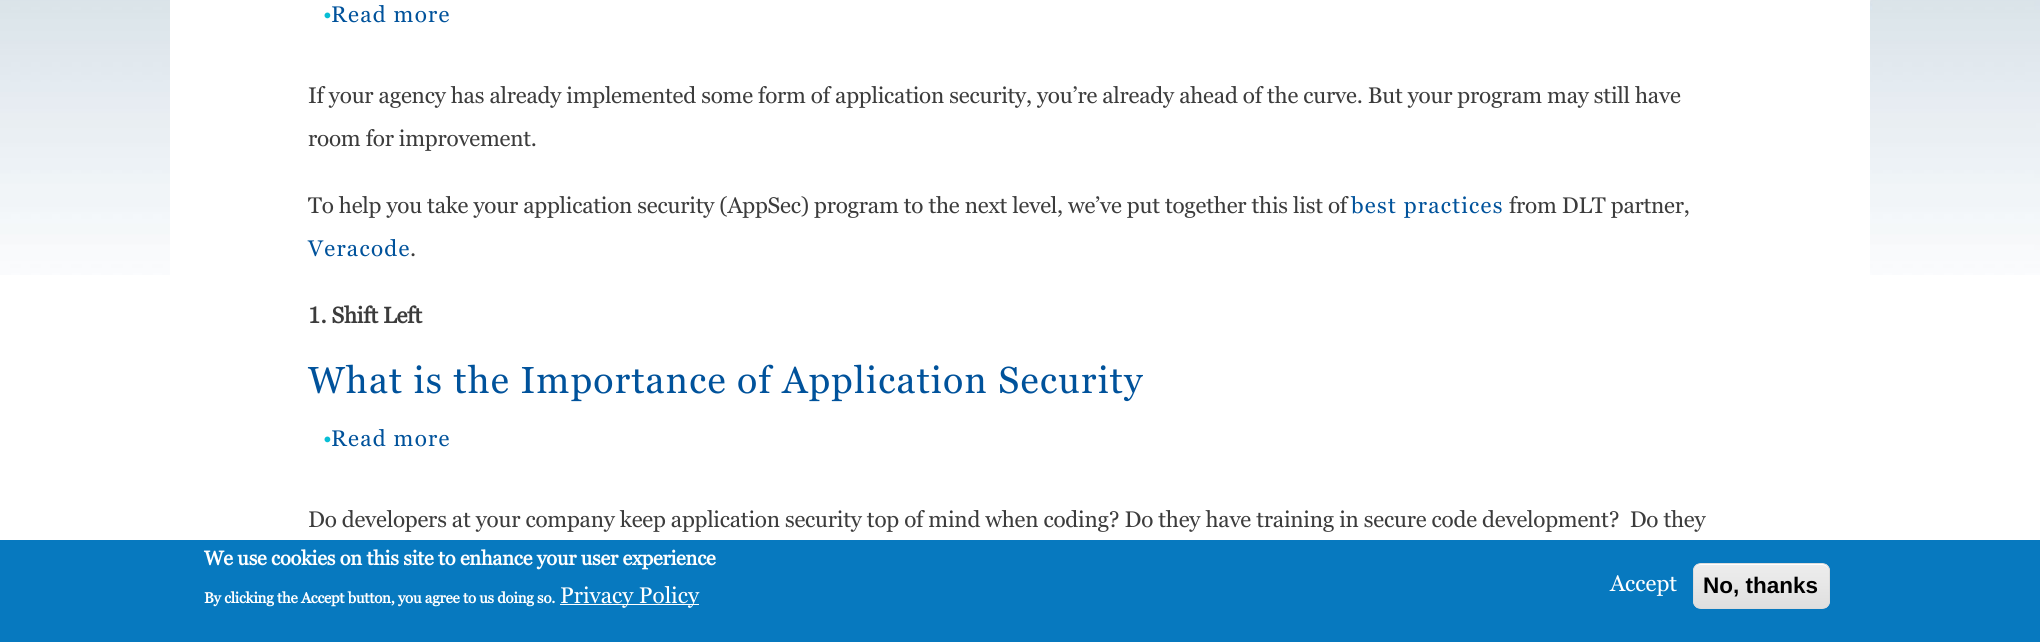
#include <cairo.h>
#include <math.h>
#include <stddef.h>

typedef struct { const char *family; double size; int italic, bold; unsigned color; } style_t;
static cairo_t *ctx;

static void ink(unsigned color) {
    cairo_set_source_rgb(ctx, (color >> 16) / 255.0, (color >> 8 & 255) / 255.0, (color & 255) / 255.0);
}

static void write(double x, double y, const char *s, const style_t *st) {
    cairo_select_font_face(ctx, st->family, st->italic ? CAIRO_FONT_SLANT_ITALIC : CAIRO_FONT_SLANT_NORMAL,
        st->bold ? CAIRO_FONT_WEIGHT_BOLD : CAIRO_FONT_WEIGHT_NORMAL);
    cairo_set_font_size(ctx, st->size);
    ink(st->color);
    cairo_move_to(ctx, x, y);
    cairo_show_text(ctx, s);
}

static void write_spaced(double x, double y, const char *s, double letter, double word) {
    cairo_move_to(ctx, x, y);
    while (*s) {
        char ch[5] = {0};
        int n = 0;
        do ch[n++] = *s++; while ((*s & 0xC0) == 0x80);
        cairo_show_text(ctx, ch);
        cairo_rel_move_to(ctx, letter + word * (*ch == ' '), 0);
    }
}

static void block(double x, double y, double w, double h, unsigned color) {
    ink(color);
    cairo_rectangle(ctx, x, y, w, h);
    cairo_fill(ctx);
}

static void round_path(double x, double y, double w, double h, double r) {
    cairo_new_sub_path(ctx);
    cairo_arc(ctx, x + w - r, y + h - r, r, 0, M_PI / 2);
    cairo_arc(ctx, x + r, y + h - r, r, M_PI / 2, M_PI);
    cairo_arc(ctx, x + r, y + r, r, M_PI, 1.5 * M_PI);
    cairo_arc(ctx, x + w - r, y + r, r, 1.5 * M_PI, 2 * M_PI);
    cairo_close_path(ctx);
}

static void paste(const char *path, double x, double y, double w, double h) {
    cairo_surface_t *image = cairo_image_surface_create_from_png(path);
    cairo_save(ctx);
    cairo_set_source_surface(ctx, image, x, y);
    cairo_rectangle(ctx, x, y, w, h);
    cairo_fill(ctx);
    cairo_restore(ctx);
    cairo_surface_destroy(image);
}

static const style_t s1 = {"Georgia", 22.5, 0, 0, 0xffffff};
static const style_t s2 = {"Liberation Sans", 22.5, 0, 1, 0x000000};

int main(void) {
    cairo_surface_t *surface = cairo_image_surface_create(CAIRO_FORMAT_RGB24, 2040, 642);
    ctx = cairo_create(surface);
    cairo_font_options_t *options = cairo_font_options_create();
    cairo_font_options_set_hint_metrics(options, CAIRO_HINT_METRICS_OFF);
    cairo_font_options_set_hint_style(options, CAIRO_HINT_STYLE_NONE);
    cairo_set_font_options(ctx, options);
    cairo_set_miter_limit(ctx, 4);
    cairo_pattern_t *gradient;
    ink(0xffffff);
    cairo_paint(ctx);
    paste("pic1.png", 0, 0, 2040, 275);
    block(170, 0, 1700, 275, 0xffffff);
    cairo_select_font_face(ctx, "Georgia", CAIRO_FONT_SLANT_NORMAL, CAIRO_FONT_WEIGHT_NORMAL);
    cairo_set_font_size(ctx, 22.5);
    ink(0x08bed5);
    write_spaced(323, 22, "•", -0.22, 0);
    ink(0x00529b);
    write_spaced(331, 22, "Read more", 1.25, 0);
    ink(0x3c3c3c);
    write_spaced(308, 103, "If your agency has already implemented some form of application security, you’re already ahead of the curve. But your program may still have", -0.22, 0);
    write_spaced(308, 146, "room for improvement.", -0.22, 0);
    write_spaced(308, 213, "To help you take your application security (AppSec) program to the next level, we’ve put together this list of", -0.22, 0);
    ink(0x00529b);
    write_spaced(1351, 213, "best practices", 1.25, 0);
    ink(0x3c3c3c);
    write_spaced(1509, 213, "from DLT partner,", -0.22, 0);
    ink(0x00529b);
    write_spaced(308, 256, "Veracode", 1.25, 0);
    ink(0x3c3c3c);
    write_spaced(410, 256, ".", -0.22, 0);
    cairo_select_font_face(ctx, "Georgia", CAIRO_FONT_SLANT_NORMAL, CAIRO_FONT_WEIGHT_BOLD);
    write_spaced(308, 323, "1. Shift Left", -0.22, 0);
    cairo_select_font_face(ctx, "Georgia", CAIRO_FONT_SLANT_NORMAL, CAIRO_FONT_WEIGHT_NORMAL);
    cairo_set_font_size(ctx, 37.5);
    ink(0x00529b);
    write_spaced(308, 393, "What is the Importance of Application Security", 1.25, 0);
    cairo_set_font_size(ctx, 22.5);
    ink(0x08bed5);
    write_spaced(323, 446, "•", -0.22, 0);
    ink(0x00529b);
    write_spaced(331, 446, "Read more", 1.25, 0);
    ink(0x3c3c3c);
    write_spaced(308, 527, "Do developers at your company keep application security top of mind when coding? Do they have training in secure code development?  Do they", -0.22, 0);
    block(0, 540, 2040, 102, 0x0779bf);
    cairo_select_font_face(ctx, "Georgia", CAIRO_FONT_SLANT_NORMAL, CAIRO_FONT_WEIGHT_BOLD);
    cairo_set_font_size(ctx, 20);
    ink(0xffffff);
    write_spaced(204, 565, "We use cookies on this site to enhance your user experience", -0.22, 0);
    cairo_set_font_size(ctx, 15);
    write_spaced(204, 603, "By clicking the Accept button, you agree to us doing so.", -0.22, 0);
    block(560, 604, 139, 1, 0xffffff);
    write(560, 603, "Privacy Policy", &s1);
    write(1610, 591, "Accept", &s1);
    cairo_save(ctx);
    round_path(1693, 563, 137, 46, 8);
    cairo_clip(ctx);
    gradient = cairo_pattern_create_linear(1761, 564, 1761, 608);
    cairo_pattern_add_color_stop_rgba(gradient, 0.05, 0.929, 0.929, 0.929, 1);
    cairo_pattern_add_color_stop_rgba(gradient, 1, 0.875, 0.875, 0.875, 1);
    cairo_set_source(ctx, gradient);
    cairo_pattern_destroy(gradient);
    cairo_rectangle(ctx, 1693, 564, 137, 44);
    cairo_fill(ctx);
    cairo_restore(ctx);
    cairo_new_path(ctx);
    cairo_move_to(ctx, 1700, 565);
    cairo_line_to(ctx, 1822, 565);
    cairo_curve_to(ctx, 1826, 565, 1829, 568, 1829, 571);
    cairo_curve_to(ctx, 1829, 559, 1808, 564, 1802, 564);
    cairo_line_to(ctx, 1720, 564);
    cairo_curve_to(ctx, 1715, 564, 1694, 559, 1694, 571);
    cairo_curve_to(ctx, 1694, 568, 1697, 565, 1700, 565);
    cairo_close_path(ctx);
    cairo_fill(ctx);
    round_path(1693.5, 563.5, 136, 45, 7.5);
    ink(0xdcdcdc);
    cairo_set_line_width(ctx, 1);
    cairo_stroke(ctx);
    write(1703, 593, "No, thanks", &s2);
    cairo_surface_write_to_png(surface, "screenshot.png");
    cairo_font_options_destroy(options);
    cairo_destroy(ctx);
    cairo_surface_destroy(surface);
    return 0;
}
